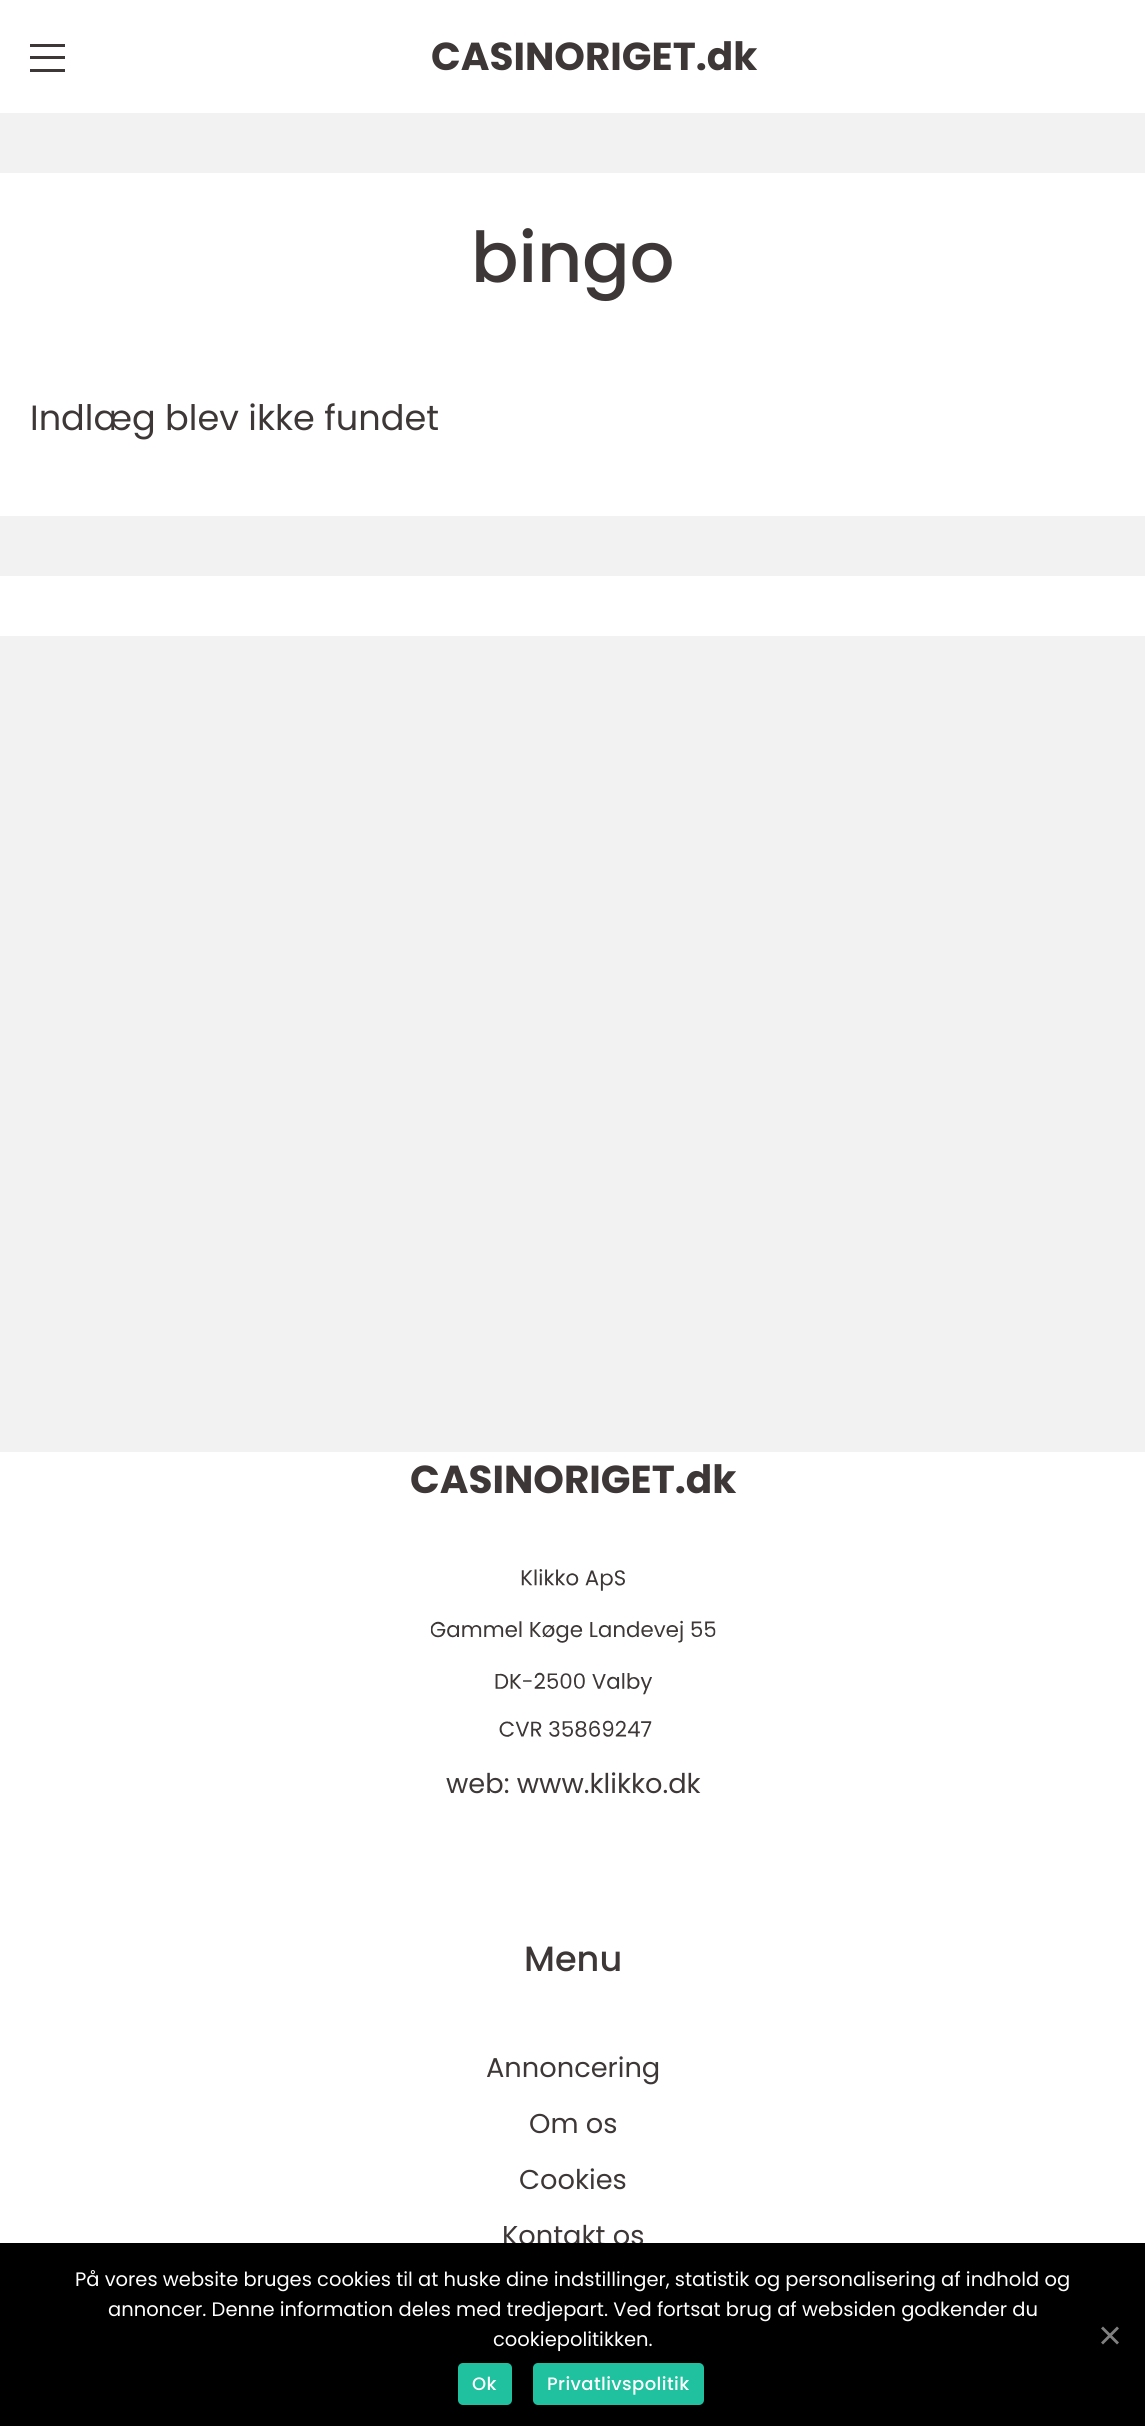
#include <cairo.h>
#include <math.h>
#include <stddef.h>

typedef struct { const char *family; double size; int italic, bold; unsigned color; } style_t;
static cairo_t *ctx;

static void ink(unsigned color) {
    cairo_set_source_rgb(ctx, (color >> 16) / 255.0, (color >> 8 & 255) / 255.0, (color & 255) / 255.0);
}

static void write(double x, double y, const char *s, const style_t *st) {
    cairo_select_font_face(ctx, st->family, st->italic ? CAIRO_FONT_SLANT_ITALIC : CAIRO_FONT_SLANT_NORMAL,
        st->bold ? CAIRO_FONT_WEIGHT_BOLD : CAIRO_FONT_WEIGHT_NORMAL);
    cairo_set_font_size(ctx, st->size);
    ink(st->color);
    cairo_move_to(ctx, x, y);
    cairo_show_text(ctx, s);
}

static void write_spaced(double x, double y, const char *s, double letter, double word) {
    cairo_move_to(ctx, x, y);
    while (*s) {
        char ch[5] = {0};
        int n = 0;
        do ch[n++] = *s++; while ((*s & 0xC0) == 0x80);
        cairo_show_text(ctx, ch);
        cairo_rel_move_to(ctx, letter + word * (*ch == ' '), 0);
    }
}

static void block(double x, double y, double w, double h, unsigned color) {
    ink(color);
    cairo_rectangle(ctx, x, y, w, h);
    cairo_fill(ctx);
}

static void round_path(double x, double y, double w, double h, double r) {
    cairo_new_sub_path(ctx);
    cairo_arc(ctx, x + w - r, y + h - r, r, 0, M_PI / 2);
    cairo_arc(ctx, x + r, y + h - r, r, M_PI / 2, M_PI);
    cairo_arc(ctx, x + r, y + r, r, M_PI, 1.5 * M_PI);
    cairo_arc(ctx, x + w - r, y + r, r, 1.5 * M_PI, 2 * M_PI);
    cairo_close_path(ctx);
}

static void paste(const char *path, double x, double y, double w, double h) {
    cairo_surface_t *image = cairo_image_surface_create_from_png(path);
    cairo_save(ctx);
    cairo_set_source_surface(ctx, image, x, y);
    cairo_rectangle(ctx, x, y, w, h);
    cairo_fill(ctx);
    cairo_restore(ctx);
    cairo_surface_destroy(image);
}

static const style_t s1 = {"Poppins", 39, 0, 1, 0x3d3737};
static const style_t s2 = {"Poppins Medium", 70, 0, 0, 0x3d3737};
static const style_t s3 = {"Poppins", 35.1, 0, 0, 0x3d3737};
static const style_t s4 = {"Poppins", 27.25, 0, 0, 0x3d3737};
static const style_t s5 = {"Poppins Medium", 35.1, 0, 0, 0x3d3737};
static const style_t s6 = {"Poppins", 19.5, 0, 0, 0xffffff};

int main(void) {
    cairo_surface_t *surface = cairo_image_surface_create(CAIRO_FORMAT_RGB24, 1145, 2426);
    ctx = cairo_create(surface);
    cairo_font_options_t *options = cairo_font_options_create();
    cairo_font_options_set_hint_metrics(options, CAIRO_HINT_METRICS_OFF);
    cairo_font_options_set_hint_style(options, CAIRO_HINT_STYLE_NONE);
    cairo_set_font_options(ctx, options);
    cairo_set_miter_limit(ctx, 4);
    ink(0xf2f2f2);
    cairo_paint(ctx);
    block(0, 0, 1145, 113, 0xffffff);
    block(30, 44, 35, 3, 0x3d3737);
    block(30, 56, 35, 3, 0x3d3737);
    block(30, 69, 35, 3, 0x3d3737);
    write(431, 70, "CASINORIGET.dk", &s1);
    block(0, 173, 1145, 463, 0xffffff);
    write(471, 282, "bingo", &s2);
    write(30, 430, "Indlæg blev ikke fundet", &s3);
    block(0, 516, 1145, 60, 0xf2f2f2);
    block(0, 1452, 1145, 791, 0xffffff);
    write(410, 1493, "CASINORIGET.dk", &s1);
    paste("pic1.png", 431, 1569, 285, 168);
    write(446, 1793, "web: www.klikko.dk", &s4);
    write(524, 1971, "Menu", &s5);
    write(486, 2077, "Annoncering", &s4);
    write(529, 2133, "Om os", &s4);
    write(519, 2189, "Cookies", &s4);
    write(502, 2245, "Kontakt os", &s4);
    block(0, 2243, 1145, 183, 0x000000);
    write(75, 2286, "På vores website bruges cookies til at huske dine indstillinger, statistik og personalisering af indhold og", &s6);
    write(108, 2316, "annoncer. Denne information deles med tredjepart. Ved fortsat brug af websiden godkender du", &s6);
    write(493, 2346, "cookiepolitikken.", &s6);
    ink(0x808080);
    cairo_new_path(ctx);
    cairo_move_to(ctx, 1117, 2326.5);
    cairo_line_to(ctx, 1119, 2328.5);
    cairo_line_to(ctx, 1103, 2344.5);
    cairo_line_to(ctx, 1101, 2342.5);
    cairo_close_path(ctx);
    cairo_fill(ctx);
    cairo_new_path(ctx);
    cairo_move_to(ctx, 1101, 2328.5);
    cairo_line_to(ctx, 1103, 2326.5);
    cairo_line_to(ctx, 1119, 2342.5);
    cairo_line_to(ctx, 1117, 2344.5);
    cairo_close_path(ctx);
    cairo_fill(ctx);
    ink(0x20c19e);
    round_path(458, 2363, 54, 42, 5);
    cairo_fill(ctx);
    cairo_select_font_face(ctx, "Poppins Medium", CAIRO_FONT_SLANT_NORMAL, CAIRO_FONT_WEIGHT_NORMAL);
    cairo_set_font_size(ctx, 18);
    ink(0xffffff);
    write_spaced(472, 2390, "Ok", 0.4, 0);
    ink(0x20c19e);
    round_path(533, 2363, 171, 42, 5);
    cairo_fill(ctx);
    ink(0xffffff);
    write_spaced(547, 2390, "Privatlivspolitik", 0.4, 0);
    cairo_surface_write_to_png(surface, "screenshot.png");
    cairo_font_options_destroy(options);
    cairo_destroy(ctx);
    cairo_surface_destroy(surface);
    return 0;
}
